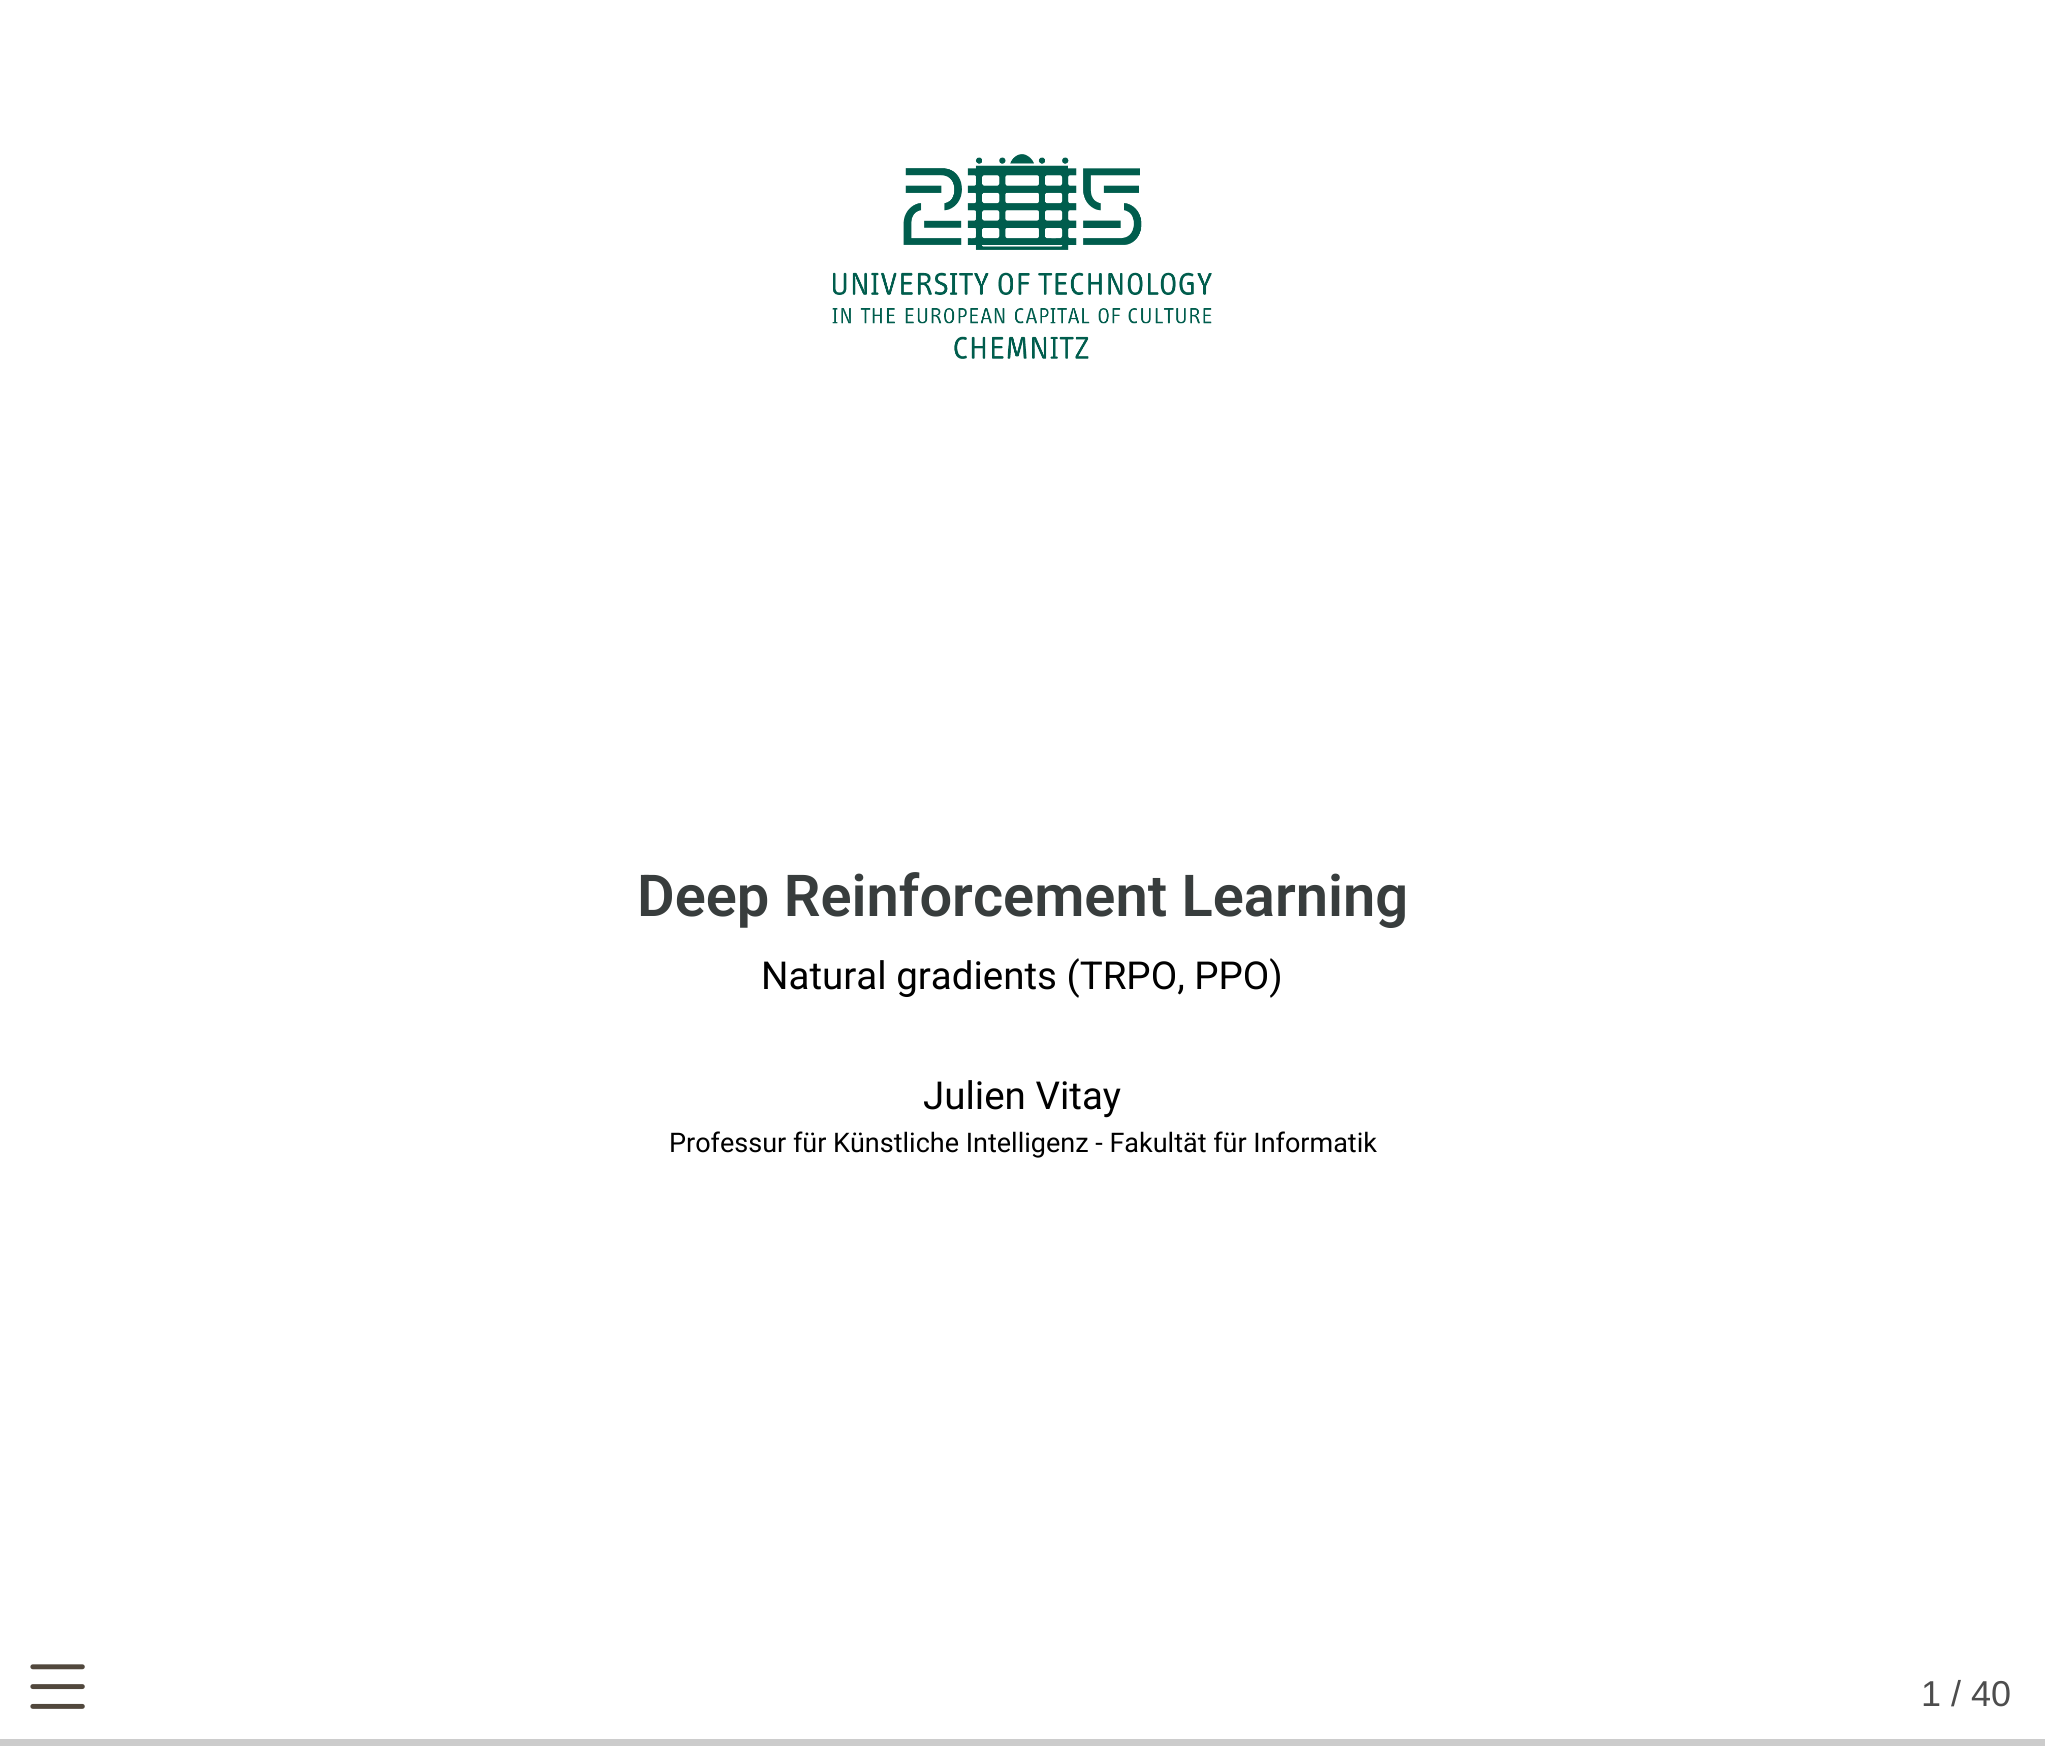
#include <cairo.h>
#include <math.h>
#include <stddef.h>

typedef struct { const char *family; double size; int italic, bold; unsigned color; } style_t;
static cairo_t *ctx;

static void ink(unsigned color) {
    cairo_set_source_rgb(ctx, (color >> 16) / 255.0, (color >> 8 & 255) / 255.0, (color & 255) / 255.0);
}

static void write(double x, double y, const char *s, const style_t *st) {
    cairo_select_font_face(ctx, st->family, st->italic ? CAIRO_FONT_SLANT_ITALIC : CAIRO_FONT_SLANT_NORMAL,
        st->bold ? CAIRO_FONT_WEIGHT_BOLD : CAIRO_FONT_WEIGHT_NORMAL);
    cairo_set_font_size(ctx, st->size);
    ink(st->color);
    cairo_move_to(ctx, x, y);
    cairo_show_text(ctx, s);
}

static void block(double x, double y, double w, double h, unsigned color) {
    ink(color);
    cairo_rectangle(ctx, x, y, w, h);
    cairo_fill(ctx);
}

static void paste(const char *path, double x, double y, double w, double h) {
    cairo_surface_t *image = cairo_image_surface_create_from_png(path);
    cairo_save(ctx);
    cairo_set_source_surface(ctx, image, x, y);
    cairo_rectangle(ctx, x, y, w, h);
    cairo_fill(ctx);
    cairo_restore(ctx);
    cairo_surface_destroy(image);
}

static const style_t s1 = {"Roboto SemiBold", 57.8, 0, 0, 0x383d3d};
static const style_t s2 = {"Roboto", 38.5, 0, 0, 0x000000};
static const style_t s3 = {"Roboto", 27, 0, 0, 0x000000};
static const style_t s4 = {"Liberation Sans", 36, 0, 0, 0x4d4d4d};

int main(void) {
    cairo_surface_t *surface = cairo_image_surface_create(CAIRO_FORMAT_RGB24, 2045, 1746);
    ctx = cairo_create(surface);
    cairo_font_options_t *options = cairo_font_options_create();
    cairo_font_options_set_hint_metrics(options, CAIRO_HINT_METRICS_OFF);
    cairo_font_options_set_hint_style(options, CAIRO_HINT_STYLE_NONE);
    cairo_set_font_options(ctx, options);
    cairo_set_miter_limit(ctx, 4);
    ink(0xffffff);
    cairo_paint(ctx);
    paste("pic1.png", 832, 154, 380, 205);
    write(637, 916, "Deep Reinforcement Learning", &s1);
    write(761, 989, "Natural gradients (TRPO, PPO)", &s2);
    write(923, 1109, "Julien Vitay", &s2);
    write(669, 1152, "Professur für Künstliche Intelligenz - Fakultät für Informatik", &s3);
    paste("pic2.png", 30, 1664, 55, 45);
    write(1921, 1706, "1 / 40", &s4);
    block(0, 1739, 2045, 7, 0xcccccc);
    cairo_surface_write_to_png(surface, "screenshot.png");
    cairo_font_options_destroy(options);
    cairo_destroy(ctx);
    cairo_surface_destroy(surface);
    return 0;
}
